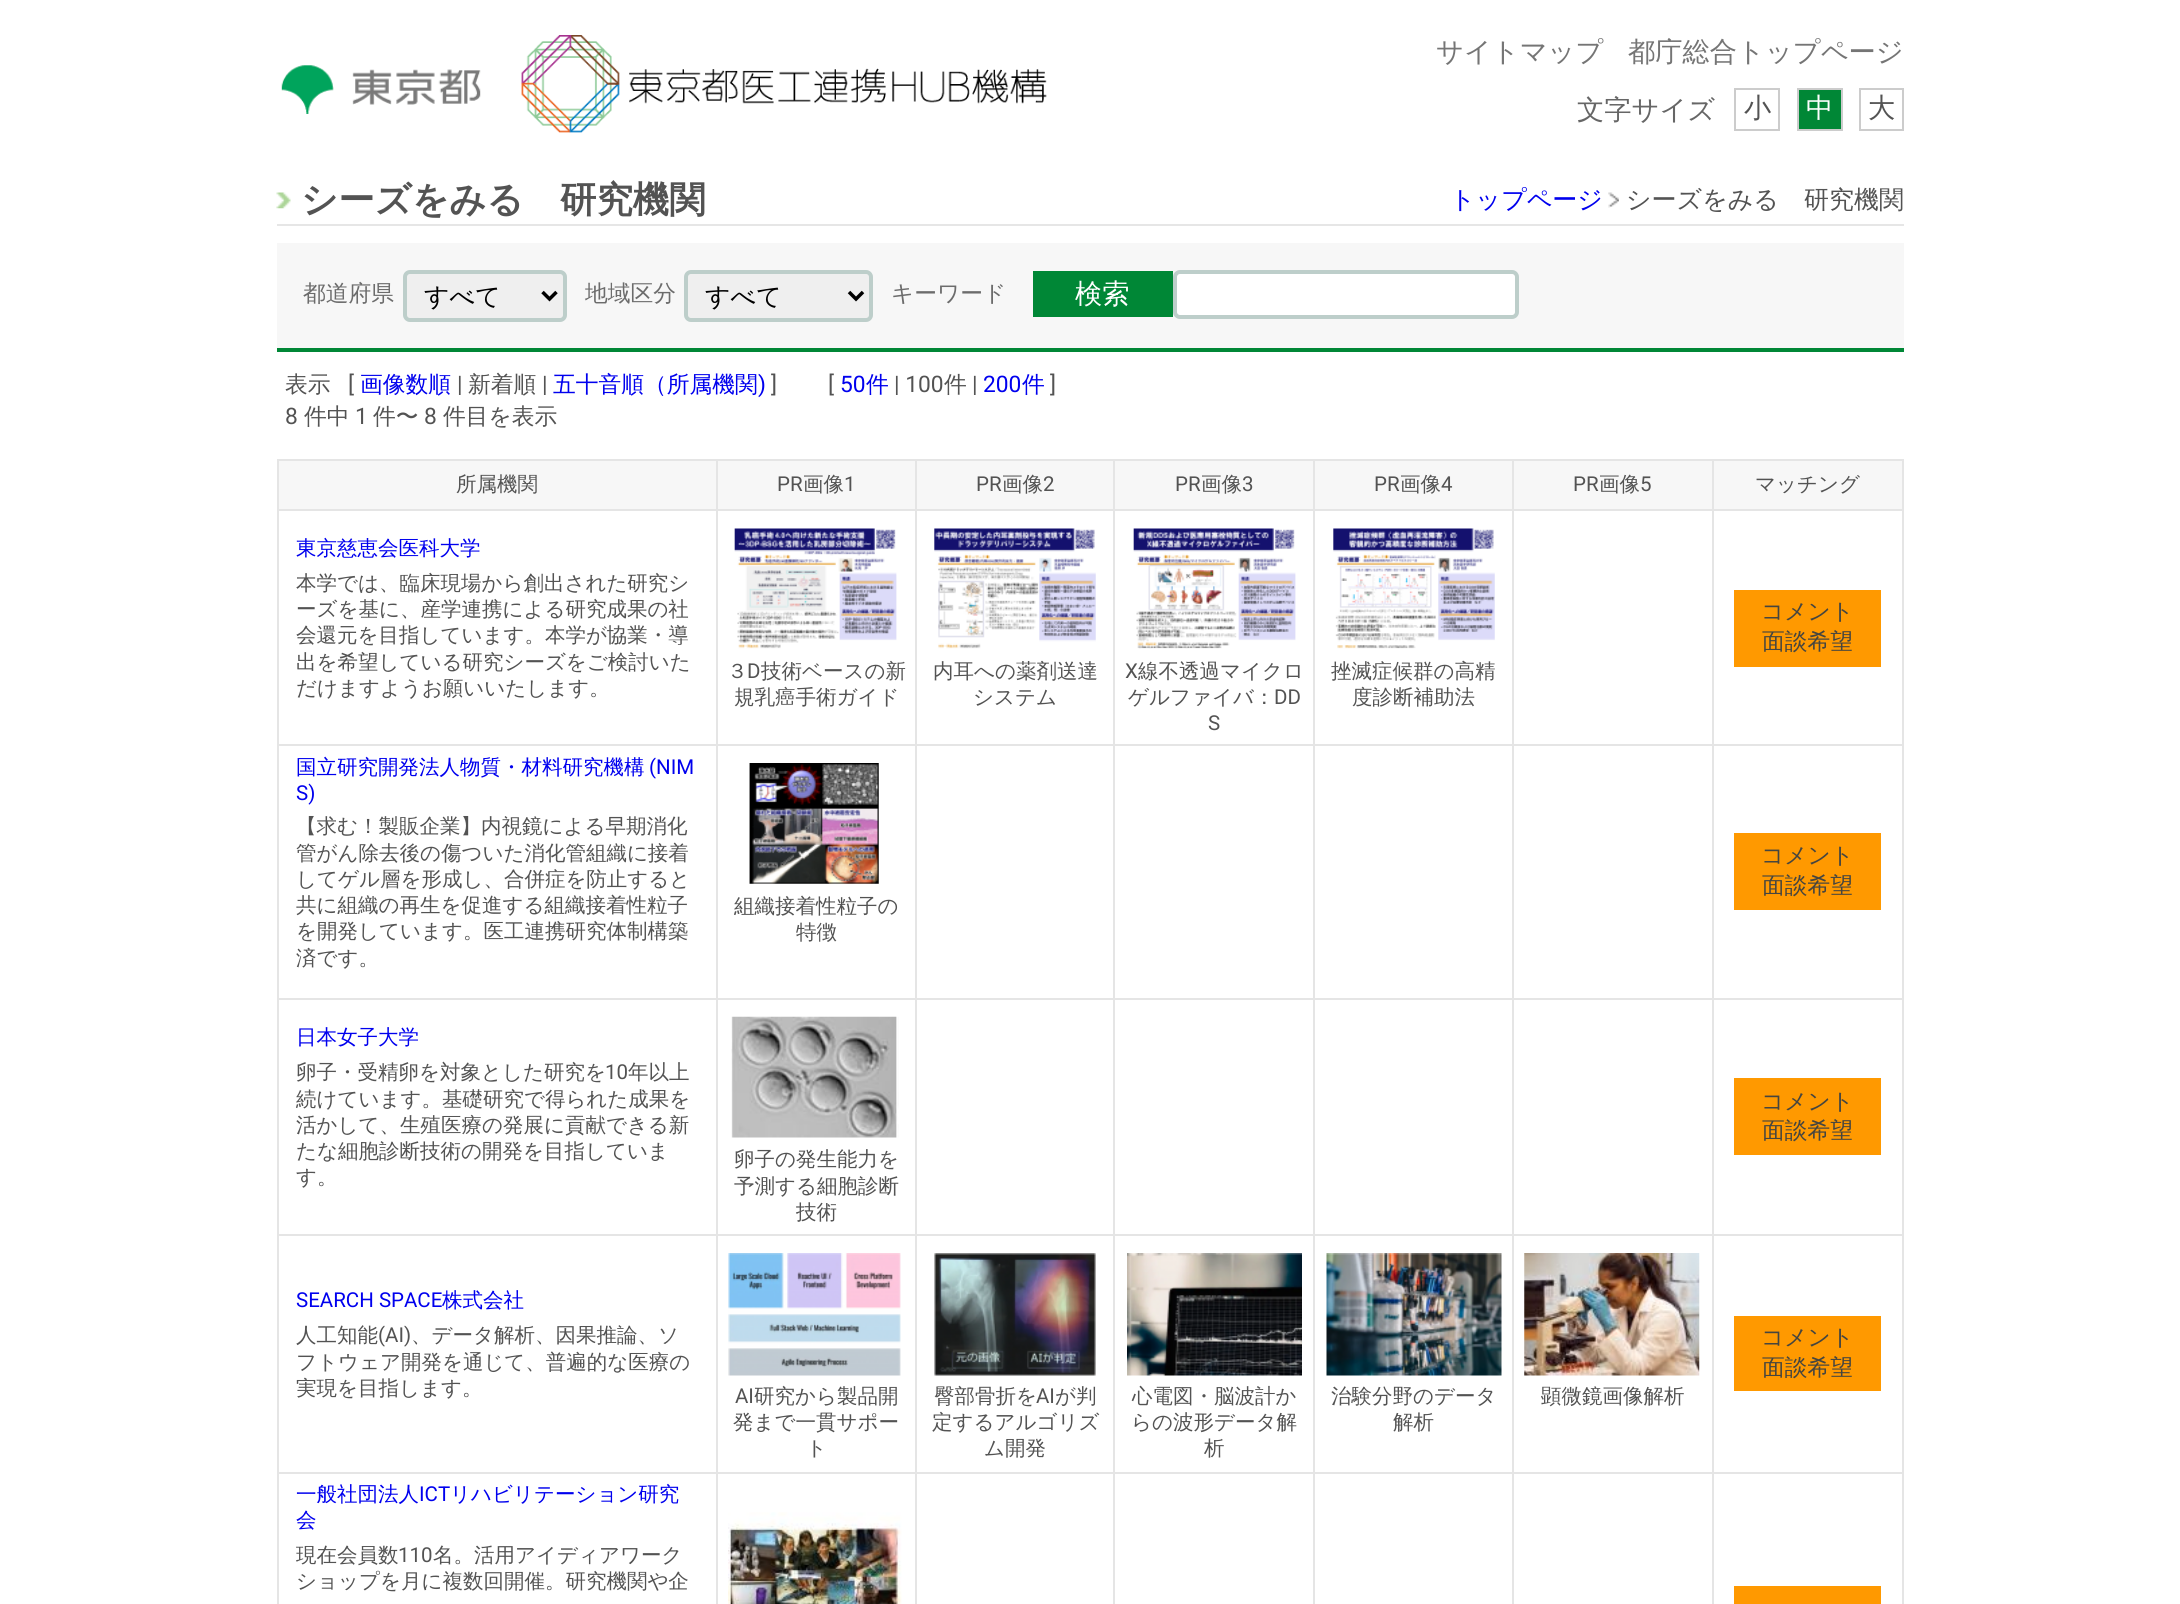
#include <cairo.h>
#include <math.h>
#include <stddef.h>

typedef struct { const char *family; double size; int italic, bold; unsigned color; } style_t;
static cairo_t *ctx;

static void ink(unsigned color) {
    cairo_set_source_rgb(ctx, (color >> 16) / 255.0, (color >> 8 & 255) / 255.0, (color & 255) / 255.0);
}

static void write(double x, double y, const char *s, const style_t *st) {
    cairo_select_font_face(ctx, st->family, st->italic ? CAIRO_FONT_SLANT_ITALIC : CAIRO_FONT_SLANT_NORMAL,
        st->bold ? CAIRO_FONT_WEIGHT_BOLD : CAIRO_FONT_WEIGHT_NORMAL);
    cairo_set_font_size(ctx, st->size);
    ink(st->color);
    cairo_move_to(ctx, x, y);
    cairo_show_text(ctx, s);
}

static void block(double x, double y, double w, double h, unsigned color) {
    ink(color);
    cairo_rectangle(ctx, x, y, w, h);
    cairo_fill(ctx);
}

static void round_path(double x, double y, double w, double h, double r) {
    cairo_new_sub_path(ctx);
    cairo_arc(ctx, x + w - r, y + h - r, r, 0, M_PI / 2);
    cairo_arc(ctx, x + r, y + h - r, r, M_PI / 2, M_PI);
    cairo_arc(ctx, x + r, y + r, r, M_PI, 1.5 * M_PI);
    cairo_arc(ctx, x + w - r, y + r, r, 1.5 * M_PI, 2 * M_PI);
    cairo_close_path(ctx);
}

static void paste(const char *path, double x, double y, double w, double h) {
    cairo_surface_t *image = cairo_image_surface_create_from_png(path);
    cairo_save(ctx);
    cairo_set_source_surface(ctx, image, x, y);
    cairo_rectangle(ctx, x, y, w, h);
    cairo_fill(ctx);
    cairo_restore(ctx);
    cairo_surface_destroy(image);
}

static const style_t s1 = {"WenQuanYi Zen Hei Medium", 27.25, 0, 0, 0x757575};
static const style_t s2 = {"WenQuanYi Zen Hei Medium", 27.25, 0, 0, 0x666666};
static const style_t s3 = {"WenQuanYi Zen Hei Medium", 27.25, 0, 0, 0x535353};
static const style_t s4 = {"WenQuanYi Zen Hei Medium", 27.25, 0, 0, 0xffffff};
static const style_t s5 = {"WenQuanYi Zen Hei", 36.4, 0, 1, 0x535353};
static const style_t s6 = {"WenQuanYi Zen Hei Medium", 25, 0, 0, 0x0000ee};
static const style_t s7 = {"WenQuanYi Zen Hei Medium", 25, 0, 0, 0x535353};
static const style_t s8 = {"WenQuanYi Zen Hei Medium", 22.75, 0, 0, 0x6c6c6c};
static const style_t s9 = {"WenQuanYi Zen Hei Medium", 25, 0, 0, 0x000000};
static const style_t s10 = {"WenQuanYi Zen Hei Medium", 22.75, 0, 0, 0x535353};
static const style_t s11 = {"Roboto", 22.75, 0, 0, 0x535353};
static const style_t s12 = {"WenQuanYi Zen Hei Medium", 22.75, 0, 0, 0x0000ee};
static const style_t s13 = {"Roboto", 22.75, 0, 0, 0x0000ee};
static const style_t s14 = {"WenQuanYi Zen Hei Medium", 20.5, 0, 0, 0x535353};
static const style_t s15 = {"Roboto", 20.5, 0, 0, 0x535353};
static const style_t s16 = {"WenQuanYi Zen Hei Medium", 20.5, 0, 0, 0x0000ee};
static const style_t s17 = {"WenQuanYi Zen Hei Medium", 22.75, 0, 0, 0x454540};
static const style_t s18 = {"Roboto", 20.5, 0, 0, 0x0000ee};

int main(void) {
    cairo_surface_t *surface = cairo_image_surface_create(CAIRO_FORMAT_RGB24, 2180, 1604);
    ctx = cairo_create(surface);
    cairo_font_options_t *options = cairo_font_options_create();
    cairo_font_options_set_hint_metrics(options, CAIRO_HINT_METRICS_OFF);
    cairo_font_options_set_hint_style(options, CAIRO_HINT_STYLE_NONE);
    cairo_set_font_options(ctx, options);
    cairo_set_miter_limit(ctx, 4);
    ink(0xffffff);
    cairo_paint(ctx);
    paste("pic1.png", 521, 35, 526, 98);
    write(1436, 61, "サイトマップ", &s1);
    write(1628, 61, "都庁総合トップページ", &s1);
    paste("pic2.png", 281, 65, 200, 49);
    write(1577, 119, "文字サイズ", &s2);
    cairo_rectangle(ctx, 1735, 89, 44, 41);
    ink(0xcccccc);
    cairo_stroke(ctx);
    write(1744, 117, "小", &s3);
    ink(0x008736);
    cairo_rectangle(ctx, 1798, 89, 44, 41);
    cairo_fill_preserve(ctx);
    ink(0xcccccc);
    cairo_stroke(ctx);
    write(1806, 117, "中", &s4);
    cairo_rectangle(ctx, 1860, 89, 43, 41);
    ink(0xcccccc);
    cairo_stroke(ctx);
    write(1868, 117, "大", &s3);
    block(277, 224, 1627, 2, 0xe6e6e6);
    paste("pic3.png", 276, 192, 15, 17);
    write(301, 212, "シーズをみる　研究機関", &s5);
    write(1450, 208, "トップページ", &s6);
    paste("pic4.png", 1608, 192, 11, 16);
    write(1626, 208, "シーズをみる　研究機関", &s7);
    block(277, 243, 1627, 105, 0xf7f7f7);
    block(277, 348, 1627, 4, 0x008736);
    write(303, 301, "都道府県", &s8);
    ink(0xefefef);
    round_path(405, 272, 160, 48, 5);
    cairo_fill_preserve(ctx);
    ink(0xbdceca);
    cairo_set_line_width(ctx, 4);
    cairo_stroke(ctx);
    cairo_new_path(ctx);
    cairo_move_to(ctx, 542.5, 292);
    cairo_line_to(ctx, 549.5, 299);
    cairo_line_to(ctx, 556.5, 292);
    ink(0x000000);
    cairo_set_line_width(ctx, 3.5);
    cairo_stroke(ctx);
    write(424, 305, "すべて", &s9);
    write(585, 301, "地域区分", &s8);
    ink(0xefefef);
    round_path(686, 272, 185, 48, 5);
    cairo_fill_preserve(ctx);
    ink(0xbdceca);
    cairo_set_line_width(ctx, 4);
    cairo_stroke(ctx);
    cairo_new_path(ctx);
    cairo_move_to(ctx, 849, 292);
    cairo_line_to(ctx, 856, 299);
    cairo_line_to(ctx, 863, 292);
    ink(0x000000);
    cairo_set_line_width(ctx, 3.5);
    cairo_stroke(ctx);
    write(705, 305, "すべて", &s9);
    write(891, 301, "キーワード", &s8);
    block(1033, 271, 140, 46, 0x008736);
    write(1075, 303, "検索", &s4);
    round_path(1175, 272, 342, 45, 5);
    cairo_fill_preserve(ctx);
    ink(0xbdceca);
    cairo_set_line_width(ctx, 4);
    cairo_stroke(ctx);
    write(285, 392, "表示", &s10);
    write(348, 392, "[", &s11);
    write(360, 392, "画像数順", &s12);
    write(457, 392, "|", &s11);
    write(468, 392, "新着順", &s10);
    write(542, 392, "|", &s11);
    write(553, 392, "五十音順（所属機関", &s12);
    write(758, 392, ")", &s13);
    write(771, 392, "]", &s11);
    write(828, 392, "[", &s11);
    write(840, 392, "50", &s13);
    write(866, 392, "件", &s12);
    write(894, 392, "| 100", &s11);
    write(944, 392, "件", &s10);
    write(972, 392, "|", &s11);
    write(983, 392, "200", &s13);
    write(1022, 392, "件", &s12);
    write(1050, 392, "]", &s11);
    write(285, 424, "8", &s11);
    write(304, 424, "件中", &s10);
    write(355, 424, "1", &s11);
    write(373, 424, "件〜", &s10);
    write(424, 424, "8", &s11);
    write(443, 424, "件目を表示", &s10);
    block(279, 461, 437, 48, 0xf7f7f7);
    block(1712, 459, 192, 2, 0xe5e5e5);
    block(1712, 509, 192, 2, 0xe5e5e5);
    block(1712, 744, 192, 2, 0xe5e5e5);
    block(1712, 998, 192, 2, 0xe5e5e5);
    block(1712, 1234, 192, 2, 0xe5e5e5);
    block(1712, 1472, 192, 2, 0xe5e5e5);
    block(1712, 1472, 2, 132, 0xe5e5e5);
    block(1512, 1472, 201, 2, 0xe5e5e5);
    block(1712, 1234, 2, 240, 0xe5e5e5);
    block(1512, 1234, 201, 2, 0xe5e5e5);
    block(1712, 998, 2, 238, 0xe5e5e5);
    block(1512, 998, 201, 2, 0xe5e5e5);
    block(1712, 744, 2, 255, 0xe5e5e5);
    block(1512, 744, 201, 2, 0xe5e5e5);
    block(1712, 509, 2, 237, 0xe5e5e5);
    block(1512, 509, 201, 2, 0xe5e5e5);
    block(1712, 459, 2, 52, 0xe5e5e5);
    block(1512, 459, 201, 2, 0xe5e5e5);
    block(1512, 1472, 2, 132, 0xe5e5e5);
    block(1313, 1472, 201, 2, 0xe5e5e5);
    block(1512, 1234, 2, 240, 0xe5e5e5);
    block(1313, 1234, 201, 2, 0xe5e5e5);
    block(1512, 998, 2, 238, 0xe5e5e5);
    block(1313, 998, 201, 2, 0xe5e5e5);
    block(1512, 744, 2, 255, 0xe5e5e5);
    block(1313, 744, 201, 2, 0xe5e5e5);
    block(1512, 509, 2, 237, 0xe5e5e5);
    block(1313, 509, 201, 2, 0xe5e5e5);
    block(1512, 459, 2, 52, 0xe5e5e5);
    block(1313, 459, 201, 2, 0xe5e5e5);
    block(1313, 1472, 2, 132, 0xe5e5e5);
    block(1113, 1472, 201, 2, 0xe5e5e5);
    block(1313, 1234, 2, 240, 0xe5e5e5);
    block(1113, 1234, 201, 2, 0xe5e5e5);
    block(1313, 998, 2, 238, 0xe5e5e5);
    block(1113, 998, 201, 2, 0xe5e5e5);
    block(1313, 744, 2, 255, 0xe5e5e5);
    block(1113, 744, 201, 2, 0xe5e5e5);
    block(1313, 509, 2, 237, 0xe5e5e5);
    block(1113, 509, 201, 2, 0xe5e5e5);
    block(1313, 459, 2, 52, 0xe5e5e5);
    block(1113, 459, 201, 2, 0xe5e5e5);
    block(1113, 1472, 2, 132, 0xe5e5e5);
    block(915, 1472, 200, 2, 0xe5e5e5);
    block(1113, 1234, 2, 240, 0xe5e5e5);
    block(915, 1234, 200, 2, 0xe5e5e5);
    block(1113, 998, 2, 238, 0xe5e5e5);
    block(915, 998, 200, 2, 0xe5e5e5);
    block(1113, 744, 2, 255, 0xe5e5e5);
    block(915, 744, 200, 2, 0xe5e5e5);
    block(1113, 509, 2, 237, 0xe5e5e5);
    block(915, 509, 200, 2, 0xe5e5e5);
    block(1113, 459, 2, 52, 0xe5e5e5);
    block(915, 459, 200, 2, 0xe5e5e5);
    block(915, 1472, 2, 132, 0xe5e5e5);
    block(716, 1472, 201, 2, 0xe5e5e5);
    block(915, 1234, 2, 240, 0xe5e5e5);
    block(716, 1234, 201, 2, 0xe5e5e5);
    block(915, 998, 2, 238, 0xe5e5e5);
    block(716, 998, 201, 2, 0xe5e5e5);
    block(915, 744, 2, 255, 0xe5e5e5);
    block(716, 744, 201, 2, 0xe5e5e5);
    block(915, 509, 2, 237, 0xe5e5e5);
    block(716, 509, 201, 2, 0xe5e5e5);
    block(915, 459, 2, 52, 0xe5e5e5);
    block(716, 459, 201, 2, 0xe5e5e5);
    block(716, 1472, 2, 132, 0xe5e5e5);
    block(277, 1472, 441, 2, 0xe5e5e5);
    block(716, 1234, 2, 240, 0xe5e5e5);
    block(277, 1234, 441, 2, 0xe5e5e5);
    block(716, 998, 2, 238, 0xe5e5e5);
    block(277, 998, 441, 2, 0xe5e5e5);
    block(716, 744, 2, 255, 0xe5e5e5);
    block(277, 744, 441, 2, 0xe5e5e5);
    block(716, 509, 2, 237, 0xe5e5e5);
    block(277, 509, 441, 2, 0xe5e5e5);
    block(716, 459, 2, 52, 0xe5e5e5);
    block(277, 459, 441, 2, 0xe5e5e5);
    block(277, 1472, 2, 132, 0xe5e5e5);
    block(277, 1234, 2, 240, 0xe5e5e5);
    block(277, 998, 2, 238, 0xe5e5e5);
    block(277, 744, 2, 255, 0xe5e5e5);
    block(277, 509, 2, 237, 0xe5e5e5);
    block(277, 459, 2, 52, 0xe5e5e5);
    write(456, 491, "所属機関", &s14);
    block(718, 461, 197, 48, 0xf7f7f7);
    write(777, 491, "PR", &s15);
    write(803, 491, "画像", &s14);
    write(844, 491, "1", &s15);
    block(917, 461, 196, 48, 0xf7f7f7);
    write(976, 491, "PR", &s15);
    write(1002, 491, "画像", &s14);
    write(1043, 491, "2", &s15);
    block(1115, 461, 198, 48, 0xf7f7f7);
    write(1175, 491, "PR", &s15);
    write(1201, 491, "画像", &s14);
    write(1242, 491, "3", &s15);
    block(1315, 461, 197, 48, 0xf7f7f7);
    write(1374, 491, "PR", &s15);
    write(1400, 491, "画像", &s14);
    write(1441, 491, "4", &s15);
    block(1514, 461, 198, 48, 0xf7f7f7);
    write(1573, 491, "PR", &s15);
    write(1599, 491, "画像", &s14);
    write(1640, 491, "5", &s15);
    block(1714, 461, 188, 48, 0xf7f7f7);
    block(1902, 1472, 2, 132, 0xe5e5e5);
    block(1902, 1234, 2, 240, 0xe5e5e5);
    block(1902, 998, 2, 238, 0xe5e5e5);
    block(1902, 744, 2, 255, 0xe5e5e5);
    block(1902, 509, 2, 237, 0xe5e5e5);
    block(1902, 459, 2, 52, 0xe5e5e5);
    write(1755, 491, "マッチング", &s14);
    write(296, 555, "東京慈恵会医科大学", &s16);
    write(296, 590, "本学では、臨床現場から創出された研究シ", &s14);
    write(296, 616, "ーズを基に、産学連携による研究成果の社", &s14);
    write(296, 642, "会還元を目指しています。本学が協業・導", &s14);
    write(296, 669, "出を希望している研究シーズをご検討いた", &s14);
    write(296, 695, "だけますようお願いいたします。", &s14);
    block(1734, 590, 147, 77, 0xff9900);
    write(1761, 619, "コメント", &s17);
    write(1762, 649, "面談希望", &s17);
    paste("pic5.png", 734, 528, 163, 121);
    write(727, 678, "３", &s14);
    write(747, 678, "D", &s15);
    write(761, 678, "技術ベースの新", &s14);
    write(734, 704, "規乳癌手術ガイド", &s14);
    paste("pic6.png", 934, 528, 162, 121);
    write(933, 678, "内耳への薬剤送達", &s14);
    write(973, 704, "システム", &s14);
    paste("pic7.png", 1133, 528, 163, 121);
    write(1125, 678, "X", &s15);
    write(1138, 678, "線不透過マイクロ", &s14);
    write(1128, 704, "ゲルファイバ：", &s14);
    write(1274, 704, "DD", &s15);
    write(1208, 730, "S", &s15);
    paste("pic8.png", 1333, 528, 162, 121);
    write(1331, 678, "挫滅症候群の高精", &s14);
    write(1352, 704, "度診断補助法", &s14);
    write(296, 774, "国立研究開発法人物質・材料研究機構", &s16);
    write(649, 774, "(NIM", &s18);
    write(296, 800, "S)", &s18);
    write(296, 833, "【求む！製販企業】内視鏡による早期消化", &s14);
    write(296, 860, "管がん除去後の傷ついた消化管組織に接着", &s14);
    write(296, 886, "してゲル層を形成し、合併症を防止すると", &s14);
    write(296, 912, "共に組織の再生を促進する組織接着性粒子", &s14);
    write(296, 938, "を開発しています。医工連携研究体制構築", &s14);
    write(296, 965, "済です。", &s14);
    block(1734, 833, 147, 77, 0xff9900);
    write(1761, 863, "コメント", &s17);
    write(1762, 893, "面談希望", &s17);
    paste("pic9.png", 749, 763, 130, 121);
    write(734, 913, "組織接着性粒子の", &s14);
    write(796, 939, "特徴", &s14);
    write(296, 1044, "日本女子大学", &s16);
    write(296, 1079, "卵子・受精卵を対象とした研究を", &s14);
    write(605, 1079, "10", &s15);
    write(628, 1079, "年以上", &s14);
    write(296, 1106, "続けています。基礎研究で得られた成果を", &s14);
    write(296, 1132, "活かして、生殖医療の発展に貢献できる新", &s14);
    write(296, 1158, "たな細胞診断技術の開発を目指していま", &s14);
    write(296, 1184, "す。", &s14);
    block(1734, 1078, 147, 77, 0xff9900);
    write(1761, 1109, "コメント", &s17);
    write(1762, 1138, "面談希望", &s17);
    paste("pic10.png", 731, 1016, 168, 122);
    write(734, 1166, "卵子の発生能力を", &s14);
    write(734, 1193, "予測する細胞診断", &s14);
    write(796, 1219, "技術", &s14);
    write(296, 1307, "SEARCH SPACE", &s18);
    write(442, 1307, "株式会社", &s16);
    write(296, 1342, "人工知能", &s14);
    write(378, 1342, "(AI)", &s15);
    write(411, 1342, "、データ解析、因果推論、ソ", &s14);
    write(296, 1369, "フトウェア開発を通じて、普遍的な医療の", &s14);
    write(296, 1395, "実現を目指します。", &s14);
    block(1734, 1316, 147, 75, 0xff9900);
    write(1761, 1345, "コメント", &s17);
    write(1762, 1375, "面談希望", &s17);
    paste("pic11.png", 728, 1253, 173, 123);
    write(735, 1403, "AI", &s15);
    write(754, 1403, "研究から製品開", &s14);
    write(733, 1429, "発まで一貫サポー", &s14);
    write(806, 1455, "ト", &s14);
    paste("pic12.png", 934, 1253, 162, 123);
    write(934, 1403, "臀部骨折を", &s14);
    write(1036, 1403, "AI", &s15);
    write(1055, 1403, "が判", &s14);
    write(932, 1429, "定するアルゴリズ", &s14);
    write(984, 1455, "ム開発", &s14);
    paste("pic13.png", 1127, 1253, 175, 123);
    write(1132, 1403, "心電図・脳波計か", &s14);
    write(1131, 1429, "らの波形データ解", &s14);
    write(1204, 1455, "析", &s14);
    paste("pic14.png", 1326, 1253, 176, 123);
    write(1331, 1403, "治験分野のデータ", &s14);
    write(1393, 1429, "解析", &s14);
    paste("pic15.png", 1524, 1253, 176, 123);
    write(1541, 1403, "顕微鏡画像解析", &s14);
    write(296, 1501, "一般社団法人", &s16);
    write(419, 1501, "ICT", &s18);
    write(450, 1501, "リハビリテーション研究", &s16);
    write(296, 1527, "会", &s16);
    write(296, 1562, "現在会員数", &s14);
    write(398, 1562, "110", &s15);
    write(433, 1562, "名。活用アイディアワーク", &s14);
    write(296, 1588, "ショップを月に複数回開催。研究機関や企", &s14);
    paste("pic16.png", 728, 1512, 174, 92);
    block(1734, 1586, 147, 18, 0xff9900);
    cairo_surface_write_to_png(surface, "screenshot.png");
    cairo_font_options_destroy(options);
    cairo_destroy(ctx);
    cairo_surface_destroy(surface);
    return 0;
}
